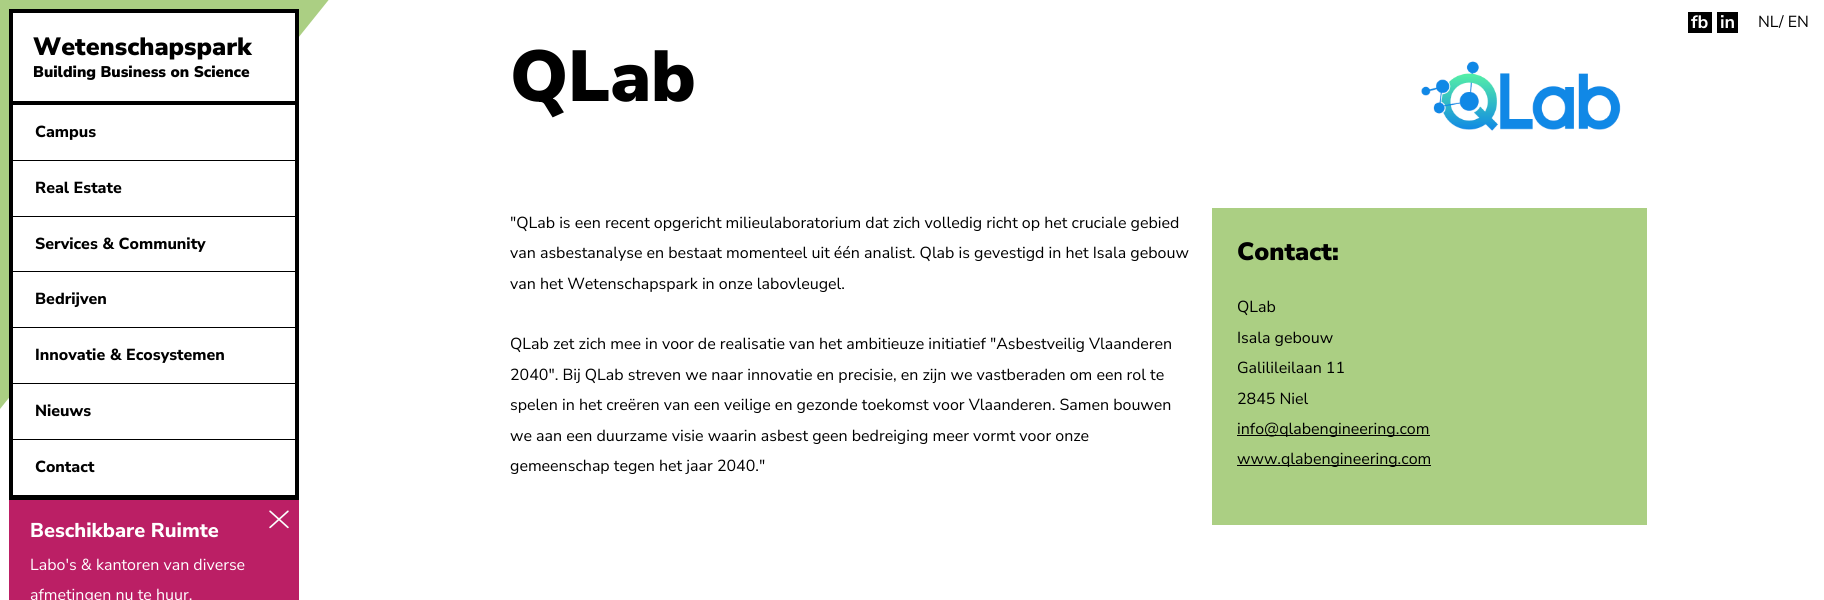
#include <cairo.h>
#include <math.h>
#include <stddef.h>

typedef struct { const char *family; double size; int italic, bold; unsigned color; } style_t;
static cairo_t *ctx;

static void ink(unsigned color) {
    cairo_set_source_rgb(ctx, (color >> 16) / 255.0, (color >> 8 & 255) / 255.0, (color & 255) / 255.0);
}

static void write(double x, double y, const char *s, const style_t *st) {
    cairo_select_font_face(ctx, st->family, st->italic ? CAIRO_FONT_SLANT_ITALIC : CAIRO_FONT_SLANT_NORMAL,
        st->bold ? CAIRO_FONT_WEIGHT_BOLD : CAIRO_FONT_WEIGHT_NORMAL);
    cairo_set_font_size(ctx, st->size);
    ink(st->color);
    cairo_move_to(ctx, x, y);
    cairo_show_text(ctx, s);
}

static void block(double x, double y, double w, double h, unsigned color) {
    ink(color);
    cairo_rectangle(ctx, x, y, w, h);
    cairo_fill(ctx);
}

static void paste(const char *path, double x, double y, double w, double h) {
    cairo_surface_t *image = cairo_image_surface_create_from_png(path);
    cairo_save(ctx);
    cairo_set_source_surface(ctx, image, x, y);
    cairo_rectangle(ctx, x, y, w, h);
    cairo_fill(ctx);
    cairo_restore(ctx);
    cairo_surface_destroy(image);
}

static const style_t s1 = {"Nunito Sans", 18, 0, 1, 0xffffff};
static const style_t s2 = {"Nunito Sans", 16, 0, 0, 0x000000};
static const style_t s3 = {"Nunito Sans Black", 25, 0, 0, 0x000000};
static const style_t s4 = {"Nunito Sans Black", 15.5, 0, 0, 0x000000};
static const style_t s5 = {"Nunito Sans ExtraBold", 16, 0, 0, 0x000000};
static const style_t s6 = {"Nunito Sans Black", 72, 0, 0, 0x000000};
static const style_t s7 = {"Nunito Sans ExtraBold", 20, 0, 0, 0xffffff};
static const style_t s8 = {"Nunito Sans", 16, 0, 0, 0xffffff};

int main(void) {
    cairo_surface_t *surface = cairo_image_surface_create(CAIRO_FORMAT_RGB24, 1824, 600);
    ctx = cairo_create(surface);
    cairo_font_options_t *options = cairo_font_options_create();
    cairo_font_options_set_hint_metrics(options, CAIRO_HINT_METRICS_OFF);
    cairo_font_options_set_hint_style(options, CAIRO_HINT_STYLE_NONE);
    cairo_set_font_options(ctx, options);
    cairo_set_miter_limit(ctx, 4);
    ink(0xffffff);
    cairo_paint(ctx);
    block(1688, 12, 24, 21, 0x000000);
    write(1691, 28, "fb", &s1);
    block(1717, 12, 21, 21, 0x000000);
    write(1720, 28, "in", &s1);
    write(1758, 27, "NL", &s2);
    write(1779, 27, "/ EN", &s2);
    ink(0xabcf83);
    cairo_new_path(ctx);
    cairo_move_to(ctx, 0, 409);
    cairo_line_to(ctx, 0, -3);
    cairo_line_to(ctx, 331, -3);
    cairo_close_path(ctx);
    cairo_fill(ctx);
    block(13, 13, 282, 380, 0xffffff);
    cairo_rectangle(ctx, 11, 11, 286, 487);
    ink(0x000000);
    cairo_set_line_width(ctx, 4);
    cairo_stroke(ctx);
    block(13, 101, 282, 4, 0x000000);
    write(33, 55, "Wetenschapspark", &s3);
    write(33, 77, "Building Business on Science", &s4);
    block(13, 160, 282, 1, 0x000000);
    write(35, 137, "Campus", &s5);
    block(13, 216, 282, 1, 0x000000);
    write(35, 193, "Real Estate", &s5);
    block(13, 271, 282, 1, 0x000000);
    write(35, 249, "Services & Community", &s5);
    block(13, 327, 282, 1, 0x000000);
    write(35, 304, "Bedrijven", &s5);
    block(13, 383, 282, 1, 0x000000);
    write(35, 360, "Innovatie & Ecosystemen", &s5);
    block(13, 439, 282, 1, 0x000000);
    write(35, 416, "Nieuws", &s5);
    block(13, 495, 282, 1, 0x000000);
    write(35, 472, "Contact", &s5);
    write(510, 101, "QLab", &s6);
    paste("pic1.png", 1421, 61, 200, 70);
    write(510, 228, "\"QLab is een recent opgericht milieulaboratorium dat zich volledig richt op het cruciale gebied", &s2);
    write(510, 258, "van asbestanalyse en bestaat momenteel uit één analist. Qlab is gevestigd in het Isala gebouw", &s2);
    write(510, 289, "van het Wetenschapspark in onze labovleugel.", &s2);
    write(510, 349, "QLab zet zich mee in voor de realisatie van het ambitieuze initiatief \"Asbestveilig Vlaanderen", &s2);
    write(510, 380, "2040\". Bij QLab streven we naar innovatie en precisie, en zijn we vastberaden om een rol te", &s2);
    write(510, 410, "spelen in het creëren van een veilige en gezonde toekomst voor Vlaanderen. Samen bouwen", &s2);
    write(510, 441, "we aan een duurzame visie waarin asbest geen bedreiging meer vormt voor onze", &s2);
    write(510, 471, "gemeenschap tegen het jaar 2040.\"", &s2);
    block(1212, 208, 435, 317, 0xabcf83);
    write(1237, 260, "Contact:", &s3);
    write(1237, 312, "QLab", &s2);
    write(1237, 343, "Isala gebouw", &s2);
    write(1237, 373, "Galilileilaan 11", &s2);
    write(1237, 404, "2845 Niel", &s2);
    block(1237, 435, 193, 1, 0x000000);
    write(1237, 434, "info@qlabengineering.com", &s2);
    block(1237, 465, 194, 1, 0x000000);
    write(1237, 464, "www.qlabengineering.com", &s2);
    block(9, 500, 290, 100, 0xbb1f65);
    write(30, 537, "Beschikbare Ruimte", &s7);
    paste("pic2.png", 269, 510, 20, 19);
    write(30, 570, "Labo's & kantoren van diverse", &s8);
    write(30, 600, "afmetingen nu te huur.", &s8);
    cairo_surface_write_to_png(surface, "screenshot.png");
    cairo_font_options_destroy(options);
    cairo_destroy(ctx);
    cairo_surface_destroy(surface);
    return 0;
}
